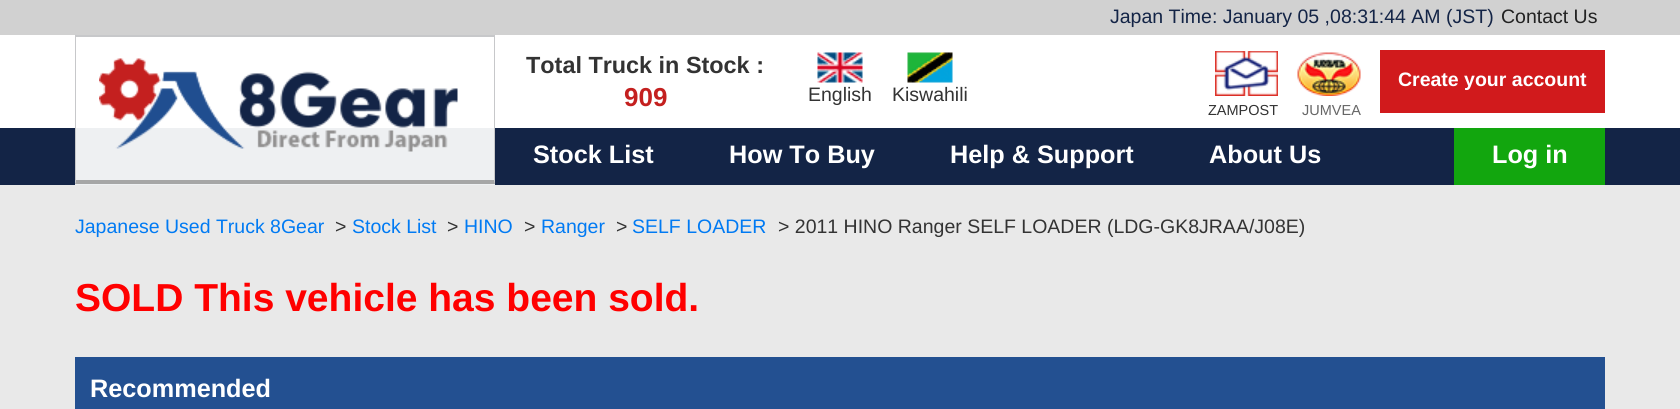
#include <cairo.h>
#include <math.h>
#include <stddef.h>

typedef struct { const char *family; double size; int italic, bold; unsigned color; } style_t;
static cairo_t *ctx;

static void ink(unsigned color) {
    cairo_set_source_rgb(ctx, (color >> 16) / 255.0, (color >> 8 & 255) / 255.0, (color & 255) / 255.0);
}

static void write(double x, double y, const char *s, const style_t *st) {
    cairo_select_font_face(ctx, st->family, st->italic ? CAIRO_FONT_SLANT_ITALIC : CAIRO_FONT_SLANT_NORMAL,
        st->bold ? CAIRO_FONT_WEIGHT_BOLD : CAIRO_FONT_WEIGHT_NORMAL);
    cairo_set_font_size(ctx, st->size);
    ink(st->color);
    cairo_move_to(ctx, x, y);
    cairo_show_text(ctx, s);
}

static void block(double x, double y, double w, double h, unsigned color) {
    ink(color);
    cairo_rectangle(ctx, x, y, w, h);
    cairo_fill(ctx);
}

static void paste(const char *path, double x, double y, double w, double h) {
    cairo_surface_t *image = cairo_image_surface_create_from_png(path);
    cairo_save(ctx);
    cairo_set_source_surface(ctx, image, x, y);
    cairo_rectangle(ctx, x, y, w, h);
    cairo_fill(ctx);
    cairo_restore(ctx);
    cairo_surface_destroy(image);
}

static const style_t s1 = {"Liberation Sans", 19.5, 0, 0, 0x132446};
static const style_t s2 = {"Liberation Sans", 19.5, 0, 0, 0x222222};
static const style_t s3 = {"Liberation Sans", 23.4, 0, 1, 0x333333};
static const style_t s4 = {"Liberation Sans", 26, 0, 1, 0xc4201f};
static const style_t s5 = {"Liberation Sans", 19.5, 0, 0, 0x333333};
static const style_t s6 = {"Liberation Sans", 19.5, 0, 1, 0xffffff};
static const style_t s7 = {"Liberation Sans", 14.5, 0, 0, 0x333333};
static const style_t s8 = {"Liberation Sans", 14.5, 0, 0, 0x666666};
static const style_t s9 = {"Liberation Sans", 25.25, 0, 1, 0xffffff};
static const style_t s10 = {"Liberation Sans", 19.5, 0, 0, 0x007af3};
static const style_t s11 = {"Liberation Sans", 39, 0, 1, 0xff0000};

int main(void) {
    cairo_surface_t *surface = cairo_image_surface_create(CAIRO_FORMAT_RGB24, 1680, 409);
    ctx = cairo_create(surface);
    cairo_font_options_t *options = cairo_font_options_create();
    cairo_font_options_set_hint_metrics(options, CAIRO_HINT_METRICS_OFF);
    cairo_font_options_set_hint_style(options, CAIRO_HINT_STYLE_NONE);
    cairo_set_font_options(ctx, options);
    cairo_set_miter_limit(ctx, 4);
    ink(0xe9e9e9);
    cairo_paint(ctx);
    block(0, 35, 1680, 93, 0xffffff);
    block(0, 0, 1680, 35, 0xd1d1d1);
    write(1110, 23, "Japan Time: January 05 ,08:31:44 AM (JST)", &s1);
    write(1501, 23, "Contact Us", &s2);
    block(75, 35, 420, 2, 0xc7c8ca);
    block(0, 128, 1680, 57, 0x132446);
    block(75, 128, 420, 57, 0xeef0f2);
    ink(0xc7c8ca);
    cairo_new_path(ctx);
    cairo_move_to(ctx, 495, 34);
    cairo_line_to(ctx, 495, 184);
    cairo_line_to(ctx, 494, 180);
    cairo_line_to(ctx, 494, 36);
    cairo_close_path(ctx);
    cairo_fill(ctx);
    ink(0xa6a6a6);
    cairo_new_path(ctx);
    cairo_move_to(ctx, 495, 184);
    cairo_line_to(ctx, 75, 184);
    cairo_line_to(ctx, 76, 180);
    cairo_line_to(ctx, 494, 180);
    cairo_close_path(ctx);
    cairo_fill(ctx);
    ink(0xc7c8ca);
    cairo_new_path(ctx);
    cairo_move_to(ctx, 75, 184);
    cairo_line_to(ctx, 75, 34);
    cairo_line_to(ctx, 76, 36);
    cairo_line_to(ctx, 76, 180);
    cairo_close_path(ctx);
    cairo_fill(ctx);
    paste("pic1.png", 99, 58, 359, 94);
    write(526, 73, "Total Truck in Stock :", &s3);
    write(624, 106, "909", &s4);
    paste("pic2.png", 817, 52, 46, 31);
    write(808, 101, "English", &s5);
    paste("pic3.png", 907, 52, 46, 31);
    write(892, 101, "Kiswahili", &s5);
    block(1380, 50, 225, 63, 0xd11a1c);
    write(1398, 86, "Create your account", &s6);
    paste("pic4.png", 1215, 51, 63, 45);
    write(1208, 115, "ZAMPOST", &s7);
    paste("pic5.png", 1297, 52, 64, 44);
    write(1302, 115, "JUMVEA", &s8);
    write(533, 163, "Stock List", &s9);
    write(729, 163, "How To Buy", &s9);
    write(950, 163, "Help & Support", &s9);
    write(1209, 163, "About Us", &s9);
    block(1454, 128, 151, 57, 0x12a60e);
    write(1492, 163, "Log in", &s9);
    write(75, 233, "Japanese Used Truck 8Gear", &s10);
    write(335, 233, ">", &s5);
    write(352, 233, "Stock List", &s10);
    write(447, 233, ">", &s5);
    write(464, 233, "HINO", &s10);
    write(524, 233, ">", &s5);
    write(541, 233, "Ranger", &s10);
    write(616, 233, ">", &s5);
    write(632, 233, "SELF LOADER", &s10);
    write(778, 233, "> 2011 HINO Ranger SELF LOADER (LDG-GK8JRAA/J08E)", &s5);
    write(75, 311, "SOLD This vehicle has been sold.", &s11);
    block(75, 357, 1530, 52, 0x235091);
    write(90, 397, "Recommended", &s9);
    cairo_surface_write_to_png(surface, "screenshot.png");
    cairo_font_options_destroy(options);
    cairo_destroy(ctx);
    cairo_surface_destroy(surface);
    return 0;
}
